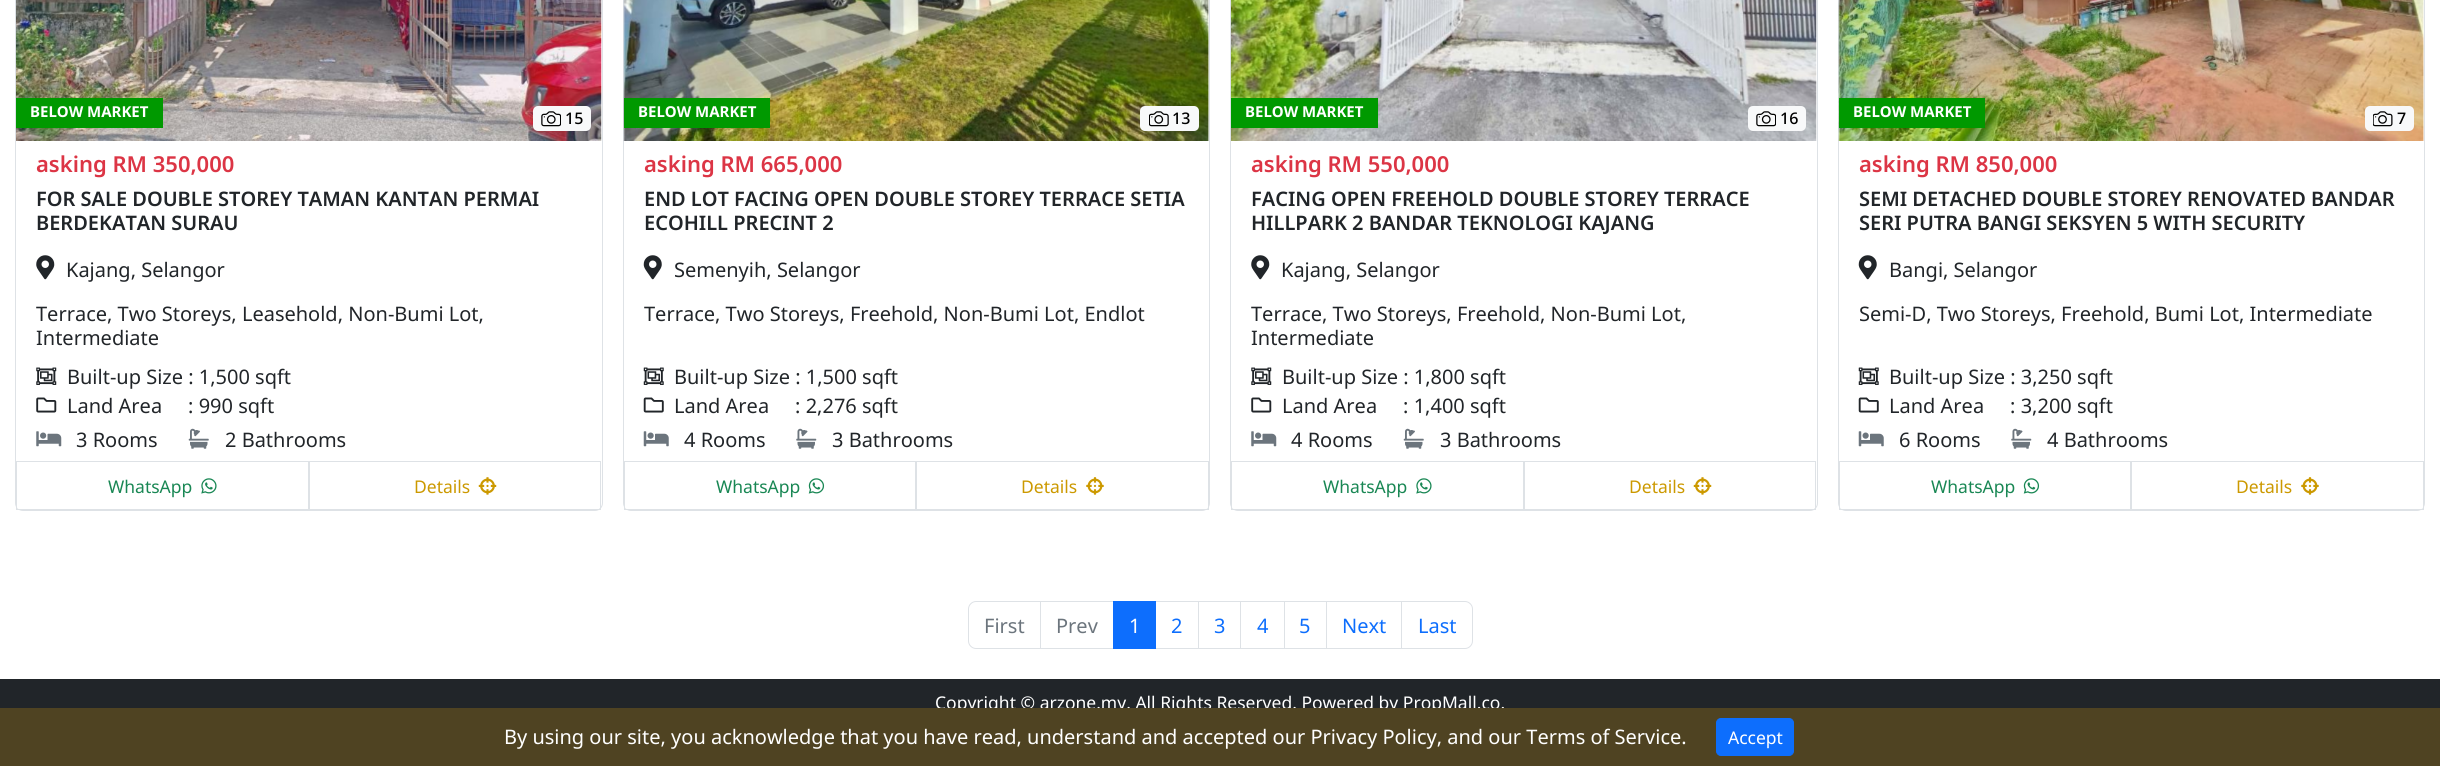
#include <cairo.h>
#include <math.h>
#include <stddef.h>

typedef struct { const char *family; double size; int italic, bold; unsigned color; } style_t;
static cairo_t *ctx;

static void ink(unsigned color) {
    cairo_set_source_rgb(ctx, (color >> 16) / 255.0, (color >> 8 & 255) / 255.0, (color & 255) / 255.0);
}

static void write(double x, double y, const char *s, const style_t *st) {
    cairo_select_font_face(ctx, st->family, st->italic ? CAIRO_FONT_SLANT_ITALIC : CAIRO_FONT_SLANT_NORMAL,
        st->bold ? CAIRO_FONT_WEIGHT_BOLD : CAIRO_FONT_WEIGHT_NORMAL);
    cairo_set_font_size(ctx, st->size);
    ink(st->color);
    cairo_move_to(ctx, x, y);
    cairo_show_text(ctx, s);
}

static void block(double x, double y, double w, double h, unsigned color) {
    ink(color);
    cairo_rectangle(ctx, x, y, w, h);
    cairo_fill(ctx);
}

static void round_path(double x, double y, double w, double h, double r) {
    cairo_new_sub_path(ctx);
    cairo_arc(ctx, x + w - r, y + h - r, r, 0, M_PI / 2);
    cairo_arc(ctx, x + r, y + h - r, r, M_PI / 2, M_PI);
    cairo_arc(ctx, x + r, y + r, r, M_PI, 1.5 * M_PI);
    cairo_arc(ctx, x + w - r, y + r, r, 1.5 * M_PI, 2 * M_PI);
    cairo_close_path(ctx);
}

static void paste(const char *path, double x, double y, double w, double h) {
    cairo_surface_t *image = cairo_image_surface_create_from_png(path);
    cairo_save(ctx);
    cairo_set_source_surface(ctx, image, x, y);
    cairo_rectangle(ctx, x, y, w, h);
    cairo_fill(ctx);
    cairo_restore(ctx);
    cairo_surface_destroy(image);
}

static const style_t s1 = {"Noto Sans", 15, 0, 1, 0xffffff};
static const style_t s2 = {"Noto Sans Medium", 16, 0, 0, 0x000000};
static const style_t s3 = {"Noto Sans SemiBold", 22, 0, 0, 0xdc3545};
static const style_t s4 = {"Noto Sans SemiBold", 20, 0, 0, 0x212529};
static const style_t s5 = {"Noto Sans", 20, 0, 0, 0x212529};
static const style_t s6 = {"Noto Sans", 17.5, 0, 0, 0x198754};
static const style_t s7 = {"Noto Sans", 17.5, 0, 0, 0xcc9900};
static const style_t s8 = {"Noto Sans", 20, 0, 0, 0x6c757d};
static const style_t s9 = {"Noto Sans", 20, 0, 0, 0xffffff};
static const style_t s10 = {"Noto Sans", 20, 0, 0, 0x0d6efd};
static const style_t s11 = {"Noto Sans", 17.5, 0, 0, 0xffffff};

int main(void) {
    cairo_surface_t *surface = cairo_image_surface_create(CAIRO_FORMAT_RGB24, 2440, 766);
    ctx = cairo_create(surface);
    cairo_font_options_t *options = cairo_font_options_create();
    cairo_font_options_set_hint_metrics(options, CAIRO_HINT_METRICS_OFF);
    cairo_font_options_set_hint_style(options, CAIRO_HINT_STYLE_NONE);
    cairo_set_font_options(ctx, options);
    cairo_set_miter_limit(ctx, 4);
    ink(0xffffff);
    cairo_paint(ctx);
    round_path(15.5, -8.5, 587, 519, 7.5);
    ink(0xdee2e6);
    cairo_set_line_width(ctx, 1);
    cairo_stroke(ctx);
    paste("pic1.png", 16, 0, 586, 141);
    block(16, 98, 147, 30, 0x009900);
    write(30, 117, "BELOW MARKET", &s1);
    ink(0xf8f9fa);
    round_path(533, 106, 58, 25, 5);
    cairo_fill(ctx);
    paste("pic2.png", 541, 111, 20, 16);
    write(565, 124, "15", &s2);
    write(36, 172, "asking RM 350,000", &s3);
    write(36, 206, "FOR SALE DOUBLE STOREY TAMAN KANTAN PERMAI", &s4);
    write(36, 230, "BERDEKATAN SURAU", &s4);
    paste("pic3.png", 36, 255, 19, 25);
    write(66, 277, "Kajang, Selangor", &s5);
    write(36, 321, "Terrace, Two Storeys, Leasehold, Non-Bumi Lot,", &s5);
    write(36, 345, "Intermediate", &s5);
    ink(0xffffff);
    cairo_new_path(ctx);
    cairo_move_to(ctx, 16, 360);
    cairo_line_to(ctx, 601, 360);
    cairo_line_to(ctx, 601, 504);
    cairo_curve_to(ctx, 601, 507.5, 598.5, 510, 595, 510);
    cairo_line_to(ctx, 22, 510);
    cairo_curve_to(ctx, 18.5, 510, 16, 507.5, 16, 504);
    cairo_close_path(ctx);
    cairo_fill(ctx);
    paste("pic4.png", 36, 367, 21, 18);
    write(67, 384, "Built-up Size : 1,500 sqft", &s5);
    paste("pic5.png", 36, 397, 21, 16);
    write(67, 413, "Land Area     : 990 sqft", &s5);
    paste("pic6.png", 36, 431, 26, 16);
    write(76, 447, "3 Rooms", &s5);
    paste("pic7.png", 188, 428, 21, 21);
    write(225, 447, "2 Bathrooms", &s5);
    cairo_rectangle(ctx, 16.5, 461.5, 292, 48);
    ink(0xdee2e6);
    cairo_stroke(ctx);
    write(108, 493, "WhatsApp", &s6);
    paste("pic8.png", 201, 478, 16, 16);
    cairo_rectangle(ctx, 309.5, 461.5, 291, 48);
    ink(0xdee2e6);
    cairo_stroke(ctx);
    write(414, 493, "Details", &s7);
    paste("pic9.png", 478, 477, 19, 18);
    round_path(623.5, -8.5, 586, 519, 7.5);
    ink(0xdee2e6);
    cairo_stroke(ctx);
    paste("pic10.png", 623, 0, 586, 141);
    block(624, 98, 146, 30, 0x009900);
    write(638, 117, "BELOW MARKET", &s1);
    ink(0xf8f9fa);
    round_path(1140, 106, 59, 25, 5);
    cairo_fill(ctx);
    paste("pic11.png", 1149, 111, 20, 16);
    write(1172, 124, "13", &s2);
    write(644, 172, "asking RM 665,000", &s3);
    write(644, 206, "END LOT FACING OPEN DOUBLE STOREY TERRACE SETIA", &s4);
    write(644, 230, "ECOHILL PRECINT 2", &s4);
    paste("pic12.png", 643, 255, 19, 25);
    write(674, 277, "Semenyih, Selangor", &s5);
    write(644, 321, "Terrace, Two Storeys, Freehold, Non-Bumi Lot, Endlot", &s5);
    ink(0xffffff);
    cairo_new_path(ctx);
    cairo_move_to(ctx, 624, 360);
    cairo_line_to(ctx, 1209, 360);
    cairo_line_to(ctx, 1209, 504);
    cairo_curve_to(ctx, 1209, 507.5, 1206.5, 510, 1203, 510);
    cairo_line_to(ctx, 630, 510);
    cairo_curve_to(ctx, 626.5, 510, 624, 507.5, 624, 504);
    cairo_close_path(ctx);
    cairo_fill(ctx);
    paste("pic13.png", 643, 367, 21, 18);
    write(674, 384, "Built-up Size : 1,500 sqft", &s5);
    paste("pic14.png", 643, 397, 21, 16);
    write(674, 413, "Land Area     : 2,276 sqft", &s5);
    paste("pic15.png", 643, 431, 26, 16);
    write(684, 447, "4 Rooms", &s5);
    paste("pic16.png", 796, 428, 21, 21);
    write(832, 447, "3 Bathrooms", &s5);
    cairo_rectangle(ctx, 624.5, 461.5, 291, 48);
    ink(0xdee2e6);
    cairo_stroke(ctx);
    write(716, 493, "WhatsApp", &s6);
    paste("pic17.png", 808, 478, 17, 16);
    cairo_rectangle(ctx, 916.5, 461.5, 292, 48);
    ink(0xdee2e6);
    cairo_stroke(ctx);
    write(1021, 493, "Details", &s7);
    paste("pic18.png", 1086, 477, 18, 18);
    round_path(1230.5, -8.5, 587, 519, 7.5);
    ink(0xdee2e6);
    cairo_stroke(ctx);
    paste("pic19.png", 1231, 0, 586, 141);
    block(1231, 98, 147, 30, 0x009900);
    write(1245, 117, "BELOW MARKET", &s1);
    ink(0xf8f9fa);
    round_path(1748, 106, 58, 25, 5);
    cairo_fill(ctx);
    paste("pic2.png", 1756, 111, 20, 16);
    write(1780, 124, "16", &s2);
    write(1251, 172, "asking RM 550,000", &s3);
    write(1251, 206, "FACING OPEN FREEHOLD DOUBLE STOREY TERRACE", &s4);
    write(1251, 230, "HILLPARK 2 BANDAR TEKNOLOGI KAJANG", &s4);
    paste("pic3.png", 1251, 255, 19, 25);
    write(1281, 277, "Kajang, Selangor", &s5);
    write(1251, 321, "Terrace, Two Storeys, Freehold, Non-Bumi Lot,", &s5);
    write(1251, 345, "Intermediate", &s5);
    ink(0xffffff);
    cairo_new_path(ctx);
    cairo_move_to(ctx, 1231, 360);
    cairo_line_to(ctx, 1816, 360);
    cairo_line_to(ctx, 1816, 504);
    cairo_curve_to(ctx, 1816, 507.5, 1813.5, 510, 1810, 510);
    cairo_line_to(ctx, 1237, 510);
    cairo_curve_to(ctx, 1233.5, 510, 1231, 507.5, 1231, 504);
    cairo_close_path(ctx);
    cairo_fill(ctx);
    paste("pic4.png", 1251, 367, 21, 18);
    write(1282, 384, "Built-up Size : 1,800 sqft", &s5);
    paste("pic5.png", 1251, 397, 21, 16);
    write(1282, 413, "Land Area     : 1,400 sqft", &s5);
    paste("pic6.png", 1251, 431, 26, 16);
    write(1291, 447, "4 Rooms", &s5);
    paste("pic7.png", 1403, 428, 21, 21);
    write(1440, 447, "3 Bathrooms", &s5);
    cairo_rectangle(ctx, 1231.5, 461.5, 292, 48);
    ink(0xdee2e6);
    cairo_stroke(ctx);
    write(1323, 493, "WhatsApp", &s6);
    paste("pic8.png", 1416, 478, 16, 16);
    cairo_rectangle(ctx, 1524.5, 461.5, 291, 48);
    ink(0xdee2e6);
    cairo_stroke(ctx);
    write(1629, 493, "Details", &s7);
    paste("pic9.png", 1693, 477, 19, 18);
    round_path(1838.5, -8.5, 586, 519, 7.5);
    ink(0xdee2e6);
    cairo_stroke(ctx);
    paste("pic20.png", 1838, 0, 586, 141);
    block(1839, 98, 146, 30, 0x009900);
    write(1853, 117, "BELOW MARKET", &s1);
    ink(0xf8f9fa);
    round_path(2365, 106, 49, 25, 5);
    cairo_fill(ctx);
    paste("pic21.png", 2373, 111, 20, 16);
    write(2397, 124, "7", &s2);
    write(1859, 172, "asking RM 850,000", &s3);
    write(1859, 206, "SEMI DETACHED DOUBLE STOREY RENOVATED BANDAR", &s4);
    write(1859, 230, "SERI PUTRA BANGI SEKSYEN 5 WITH SECURITY", &s4);
    paste("pic12.png", 1858, 255, 19, 25);
    write(1889, 277, "Bangi, Selangor", &s5);
    write(1859, 321, "Semi-D, Two Storeys, Freehold, Bumi Lot, Intermediate", &s5);
    ink(0xffffff);
    cairo_new_path(ctx);
    cairo_move_to(ctx, 1839, 360);
    cairo_line_to(ctx, 2424, 360);
    cairo_line_to(ctx, 2424, 504);
    cairo_curve_to(ctx, 2424, 507.5, 2421.5, 510, 2418, 510);
    cairo_line_to(ctx, 1845, 510);
    cairo_curve_to(ctx, 1841.5, 510, 1839, 507.5, 1839, 504);
    cairo_close_path(ctx);
    cairo_fill(ctx);
    paste("pic13.png", 1858, 367, 21, 18);
    write(1889, 384, "Built-up Size : 3,250 sqft", &s5);
    paste("pic14.png", 1858, 397, 21, 16);
    write(1889, 413, "Land Area     : 3,200 sqft", &s5);
    paste("pic15.png", 1858, 431, 26, 16);
    write(1899, 447, "6 Rooms", &s5);
    paste("pic16.png", 2011, 428, 21, 21);
    write(2047, 447, "4 Bathrooms", &s5);
    cairo_rectangle(ctx, 1839.5, 461.5, 291, 48);
    ink(0xdee2e6);
    cairo_stroke(ctx);
    write(1931, 493, "WhatsApp", &s6);
    paste("pic17.png", 2023, 478, 17, 16);
    cairo_rectangle(ctx, 2131.5, 461.5, 292, 48);
    ink(0xdee2e6);
    cairo_stroke(ctx);
    write(2236, 493, "Details", &s7);
    paste("pic18.png", 2301, 477, 18, 18);
    cairo_new_path(ctx);
    cairo_move_to(ctx, 976, 601.5);
    cairo_line_to(ctx, 1040.5, 601.5);
    cairo_line_to(ctx, 1040.5, 648.5);
    cairo_line_to(ctx, 976, 648.5);
    cairo_curve_to(ctx, 972, 648.5, 968.5, 645, 968.5, 641);
    cairo_line_to(ctx, 968.5, 609);
    cairo_curve_to(ctx, 968.5, 605, 972, 601.5, 976, 601.5);
    cairo_close_path(ctx);
    ink(0xdee2e6);
    cairo_stroke(ctx);
    write(984, 633, "First", &s8);
    cairo_rectangle(ctx, 1040.5, 601.5, 73, 47);
    ink(0xdee2e6);
    cairo_stroke(ctx);
    write(1056, 633, "Prev", &s8);
    cairo_rectangle(ctx, 1155.5, 601.5, 43, 47);
    ink(0xdee2e6);
    cairo_stroke(ctx);
    block(1113, 601, 43, 48, 0x0d6efd);
    write(1129, 633, "1", &s9);
    write(1171, 633, "2", &s10);
    cairo_rectangle(ctx, 1198.5, 601.5, 42, 47);
    ink(0xdee2e6);
    cairo_stroke(ctx);
    write(1214, 633, "3", &s10);
    cairo_rectangle(ctx, 1240.5, 601.5, 44, 47);
    ink(0xdee2e6);
    cairo_stroke(ctx);
    write(1257, 633, "4", &s10);
    cairo_rectangle(ctx, 1284.5, 601.5, 43, 47);
    ink(0xdee2e6);
    cairo_stroke(ctx);
    write(1299, 633, "5", &s10);
    block(1327, 602, 1, 46, 0xffffff);
    cairo_rectangle(ctx, 1326.5, 601.5, 76, 47);
    ink(0xdee2e6);
    cairo_stroke(ctx);
    write(1342, 633, "Next", &s10);
    ink(0xffffff);
    cairo_new_path(ctx);
    cairo_move_to(ctx, 1401.5, 601.5);
    cairo_line_to(ctx, 1465, 601.5);
    cairo_curve_to(ctx, 1469, 601.5, 1472.5, 605, 1472.5, 609);
    cairo_line_to(ctx, 1472.5, 641);
    cairo_curve_to(ctx, 1472.5, 645, 1469, 648.5, 1465, 648.5);
    cairo_line_to(ctx, 1401.5, 648.5);
    cairo_close_path(ctx);
    cairo_fill_preserve(ctx);
    ink(0xdee2e6);
    cairo_stroke(ctx);
    write(1418, 633, "Last", &s10);
    block(0, 679, 2440, 29, 0x212529);
    write(935, 709, "Copyright © arzone.my. All Rights Reserved. Powered by PropMall.co.", &s11);
    block(0, 708, 2440, 58, 0x4f4322);
    write(504, 744, "By using our site, you acknowledge that you have read, understand and accepted our Privacy Policy, and our Terms of Service.", &s9);
    ink(0x0d6efd);
    round_path(1716.5, 718.5, 77, 37, 4.5);
    cairo_fill_preserve(ctx);
    cairo_stroke(ctx);
    write(1728, 744, "Accept", &s11);
    cairo_surface_write_to_png(surface, "screenshot.png");
    cairo_font_options_destroy(options);
    cairo_destroy(ctx);
    cairo_surface_destroy(surface);
    return 0;
}
